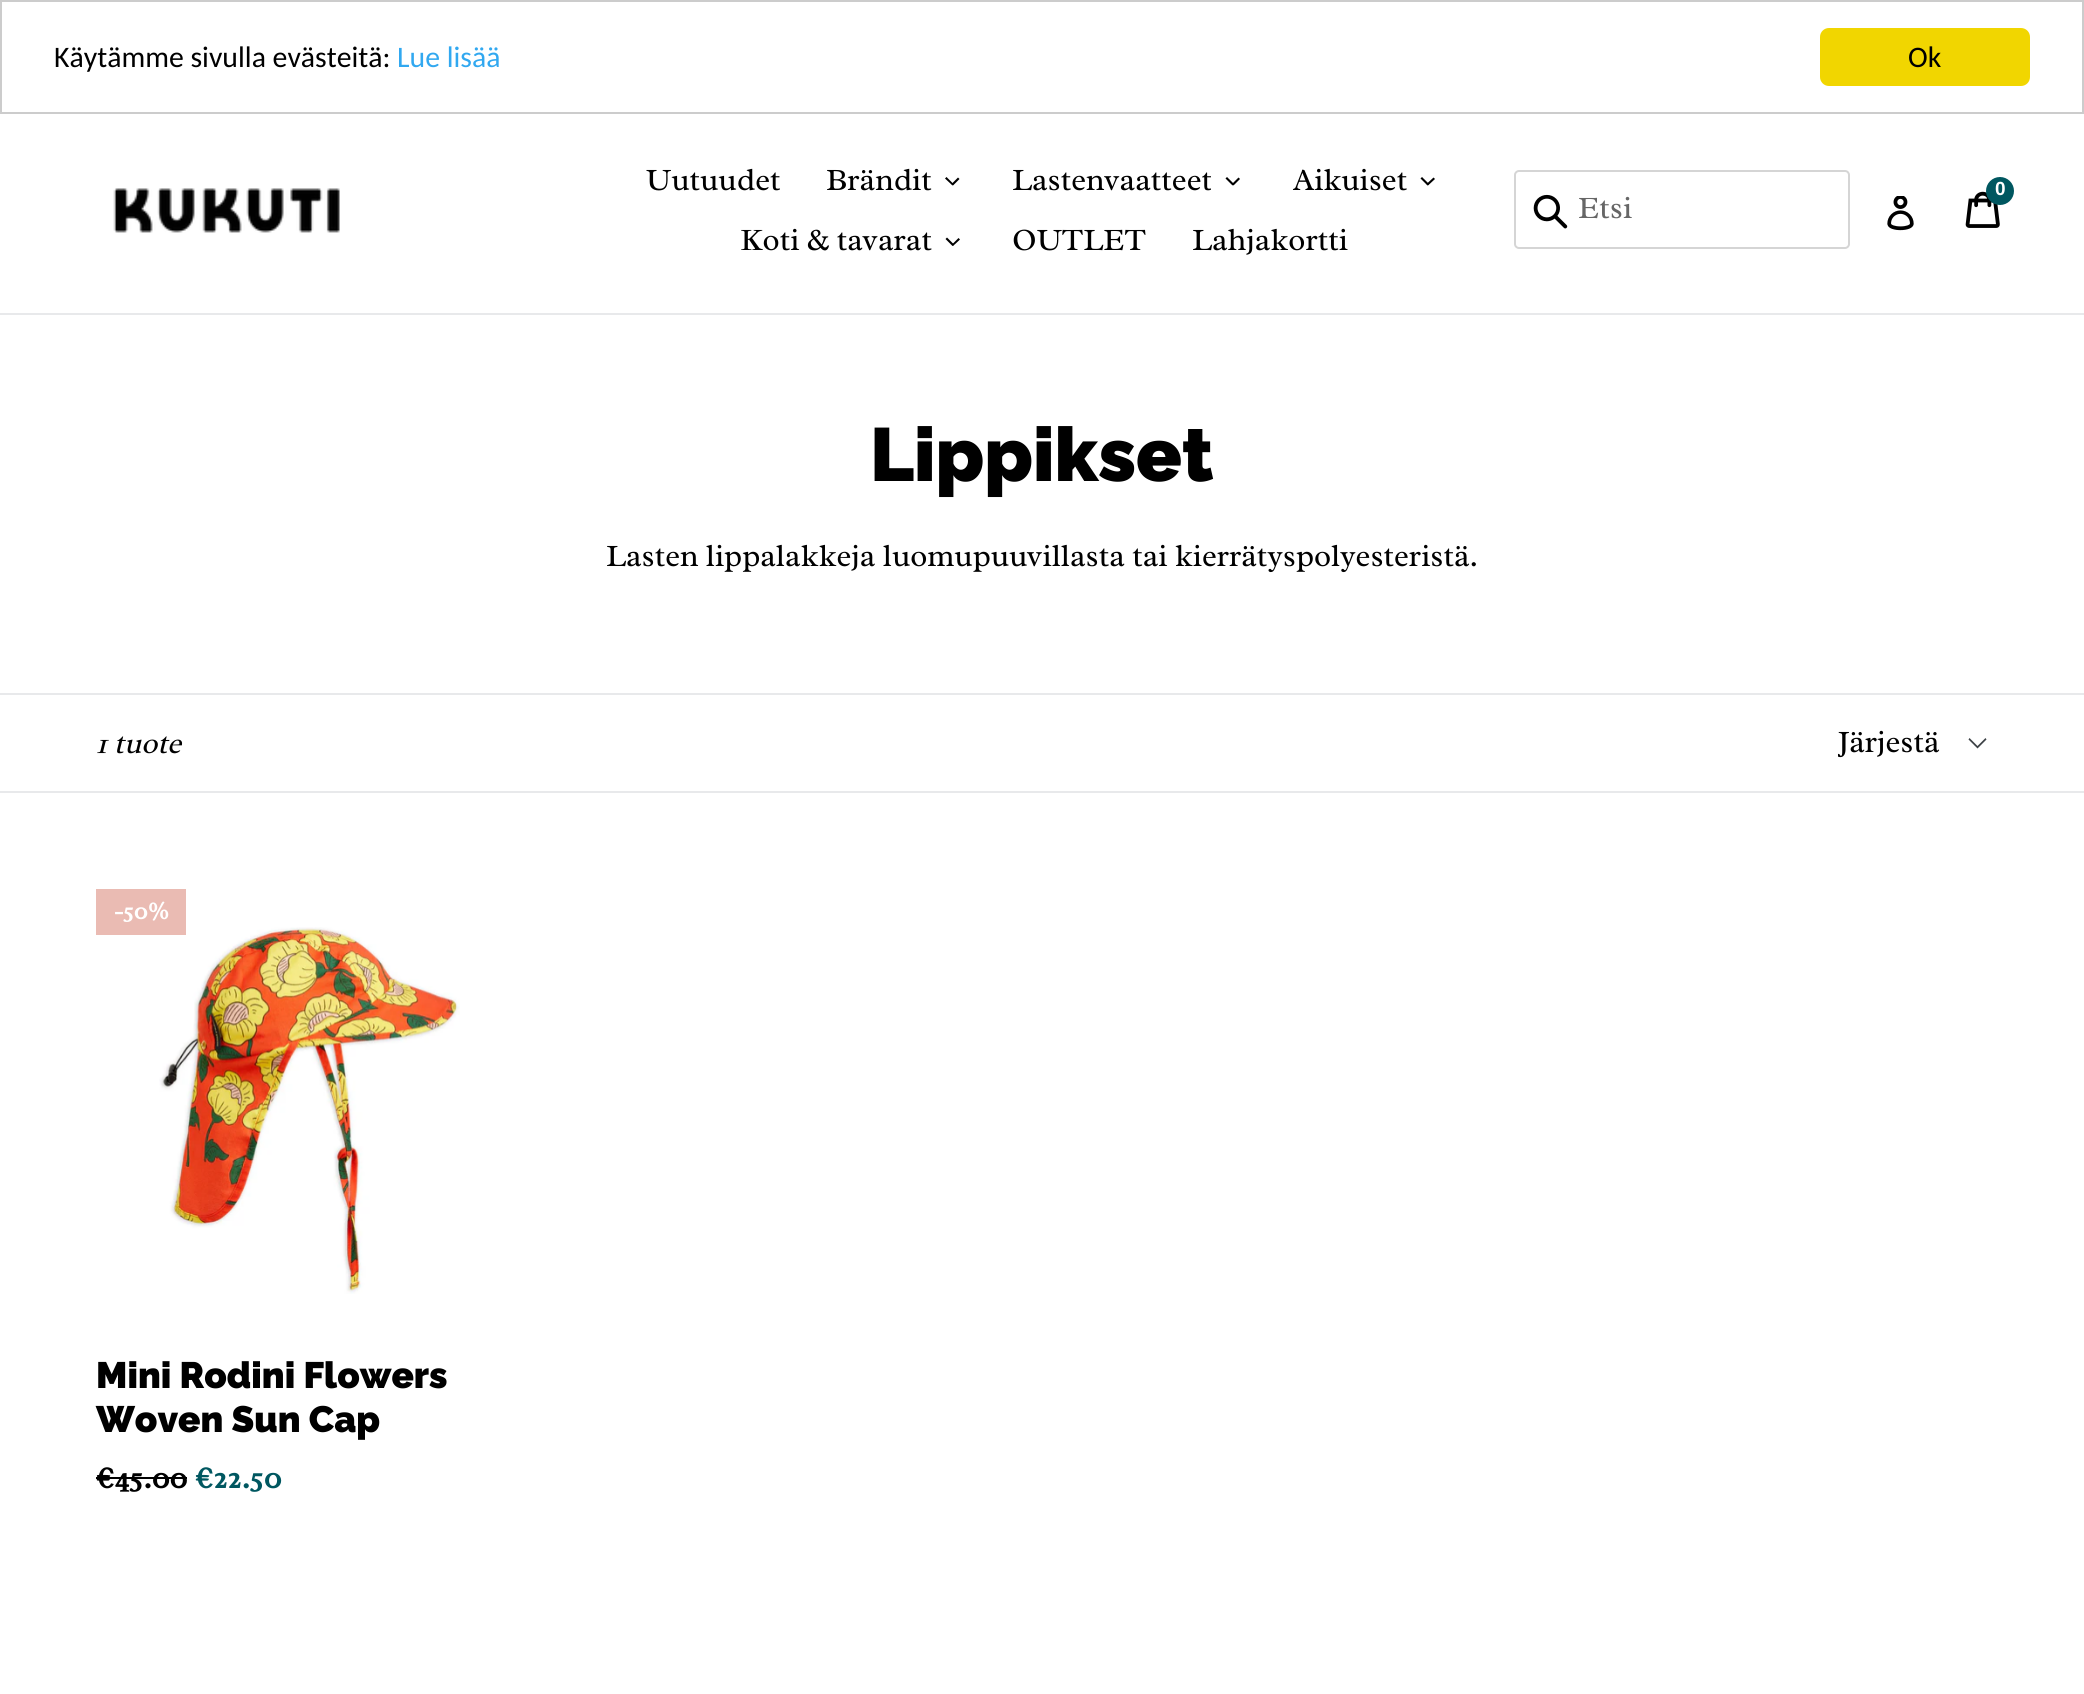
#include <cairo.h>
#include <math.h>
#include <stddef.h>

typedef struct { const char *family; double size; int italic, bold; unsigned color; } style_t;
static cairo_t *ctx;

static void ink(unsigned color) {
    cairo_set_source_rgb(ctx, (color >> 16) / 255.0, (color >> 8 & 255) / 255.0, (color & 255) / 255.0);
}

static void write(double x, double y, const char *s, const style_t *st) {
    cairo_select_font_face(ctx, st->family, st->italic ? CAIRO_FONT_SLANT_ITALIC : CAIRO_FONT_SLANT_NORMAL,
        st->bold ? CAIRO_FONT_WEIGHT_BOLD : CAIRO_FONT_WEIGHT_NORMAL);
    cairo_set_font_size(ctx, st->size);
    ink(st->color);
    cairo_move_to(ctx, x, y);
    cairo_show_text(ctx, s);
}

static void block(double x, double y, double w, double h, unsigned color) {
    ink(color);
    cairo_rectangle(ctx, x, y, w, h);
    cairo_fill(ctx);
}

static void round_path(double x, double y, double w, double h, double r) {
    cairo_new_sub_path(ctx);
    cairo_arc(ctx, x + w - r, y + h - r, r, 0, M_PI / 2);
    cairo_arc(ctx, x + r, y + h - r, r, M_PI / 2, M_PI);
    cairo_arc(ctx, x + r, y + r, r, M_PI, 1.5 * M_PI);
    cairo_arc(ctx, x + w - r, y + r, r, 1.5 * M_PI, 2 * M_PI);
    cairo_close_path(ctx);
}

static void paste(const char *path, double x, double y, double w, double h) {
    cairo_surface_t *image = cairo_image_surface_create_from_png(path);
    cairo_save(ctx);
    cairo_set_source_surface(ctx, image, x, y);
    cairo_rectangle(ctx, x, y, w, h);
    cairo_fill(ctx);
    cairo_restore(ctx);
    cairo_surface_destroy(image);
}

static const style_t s1 = {"Carlito", 29.75, 0, 0, 0x000000};
static const style_t s2 = {"Carlito", 29.75, 0, 0, 0x31a8f0};
static const style_t s3 = {"Radley", 31.5, 0, 0, 0x000000};
static const style_t s4 = {"Liberation Sans", 19, 0, 1, 0xffffff};
static const style_t s5 = {"Radley", 31.5, 0, 0, 0x666666};
static const style_t s6 = {"Raleway Thin", 75.25, 0, 0, 0x000000};
static const style_t s7 = {"Radley", 29.75, 1, 0, 0x000000};
static const style_t s8 = {"Radley", 24.5, 0, 1, 0xffffff};
static const style_t s9 = {"Raleway Thin", 36.75, 0, 0, 0x000000};
static const style_t s10 = {"Radley", 31.5, 0, 1, 0x000000};
static const style_t s11 = {"Radley", 31.5, 0, 1, 0x005760};

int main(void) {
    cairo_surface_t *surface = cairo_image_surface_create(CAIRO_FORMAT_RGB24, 2084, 1694);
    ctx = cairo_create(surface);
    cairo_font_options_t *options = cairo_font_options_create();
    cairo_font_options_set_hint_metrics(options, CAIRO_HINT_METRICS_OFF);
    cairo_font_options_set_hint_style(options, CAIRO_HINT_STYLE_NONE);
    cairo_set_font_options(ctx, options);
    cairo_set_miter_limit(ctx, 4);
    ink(0xffffff);
    cairo_paint(ctx);
    cairo_rectangle(ctx, 1, 1, 2082, 112);
    ink(0xcccccc);
    cairo_stroke(ctx);
    write(54, 67, "Käytämme sivulla evästeitä:", &s1);
    write(397, 67, "Lue lisää", &s2);
    ink(0xf1d600);
    round_path(1820, 28, 210, 58, 9);
    cairo_fill(ctx);
    write(1908, 67, "Ok", &s1);
    block(0, 313, 2084, 2, 0xe8e9eb);
    paste("pic1.png", 113, 188, 227, 45);
    write(646, 190, "Uutuudet", &s3);
    write(826, 190, "Brändit", &s3);
    cairo_new_path(ctx);
    cairo_move_to(ctx, 958, 177.5);
    cairo_line_to(ctx, 959.5, 179);
    cairo_line_to(ctx, 953, 185.5);
    cairo_line_to(ctx, 951.5, 184);
    cairo_close_path(ctx);
    cairo_fill(ctx);
    cairo_new_path(ctx);
    cairo_move_to(ctx, 946.5, 177);
    cairo_line_to(ctx, 953.5, 184);
    cairo_line_to(ctx, 952.5, 185.5);
    cairo_line_to(ctx, 945, 178.5);
    cairo_close_path(ctx);
    cairo_fill(ctx);
    write(1012, 190, "Lastenvaatteet", &s3);
    cairo_new_path(ctx);
    cairo_move_to(ctx, 1238.5, 177.5);
    cairo_line_to(ctx, 1240, 179);
    cairo_line_to(ctx, 1233.5, 185.5);
    cairo_line_to(ctx, 1232, 184);
    cairo_close_path(ctx);
    cairo_fill(ctx);
    cairo_new_path(ctx);
    cairo_move_to(ctx, 1227, 177);
    cairo_line_to(ctx, 1234, 184);
    cairo_line_to(ctx, 1232.5, 185.5);
    cairo_line_to(ctx, 1225.5, 178.5);
    cairo_close_path(ctx);
    cairo_fill(ctx);
    write(1293, 190, "Aikuiset", &s3);
    cairo_new_path(ctx);
    cairo_move_to(ctx, 1433.5, 177.5);
    cairo_line_to(ctx, 1435, 179);
    cairo_line_to(ctx, 1428, 185.5);
    cairo_line_to(ctx, 1426.5, 184);
    cairo_close_path(ctx);
    cairo_fill(ctx);
    cairo_new_path(ctx);
    cairo_move_to(ctx, 1422, 177);
    cairo_line_to(ctx, 1429, 184);
    cairo_line_to(ctx, 1427.5, 185.5);
    cairo_line_to(ctx, 1420.5, 178.5);
    cairo_close_path(ctx);
    cairo_fill(ctx);
    write(740, 250, "Koti & tavarat", &s3);
    cairo_new_path(ctx);
    cairo_move_to(ctx, 958.5, 238);
    cairo_line_to(ctx, 960, 239.5);
    cairo_line_to(ctx, 953, 246);
    cairo_line_to(ctx, 952, 244.5);
    cairo_close_path(ctx);
    cairo_fill(ctx);
    cairo_new_path(ctx);
    cairo_move_to(ctx, 947, 237.5);
    cairo_line_to(ctx, 954, 244.5);
    cairo_line_to(ctx, 952.5, 246);
    cairo_line_to(ctx, 945.5, 239);
    cairo_close_path(ctx);
    cairo_fill(ctx);
    write(1012, 250, "OUTLET", &s3);
    write(1192, 250, "Lahjakortti", &s3);
    paste("pic2.png", 1965, 191, 35, 37);
    ink(0x005760);
    cairo_arc(ctx, 2000, 191, 14, 0, 2 * M_PI);
    cairo_fill(ctx);
    write(1995, 195, "0", &s4);
    round_path(1515, 171, 334, 77, 4);
    ink(0xd5d5d5);
    cairo_stroke(ctx);
    paste("pic3.png", 1533, 194, 35, 35);
    write(1578, 218, "Etsi", &s5);
    paste("pic4.png", 1887, 196, 27, 35);
    write(870, 481, "Lippikset", &s6);
    write(606, 566, "Lasten lippalakkeja luomupuuvillasta tai kierrätyspolyesteristä.", &s3);
    block(0, 693, 2084, 2, 0xe8e9eb);
    block(0, 791, 2084, 2, 0xe8e9eb);
    write(96, 753, "1 tuote", &s7);
    ink(0x3d4246);
    cairo_new_path(ctx);
    cairo_move_to(ctx, 1977.5, 748.5);
    cairo_line_to(ctx, 1968.5, 739.5);
    cairo_line_to(ctx, 1969.5, 738);
    cairo_line_to(ctx, 1977.5, 746);
    cairo_line_to(ctx, 1985.5, 738);
    cairo_line_to(ctx, 1986.5, 739.5);
    cairo_close_path(ctx);
    cairo_fill(ctx);
    cairo_save(ctx);
    cairo_rectangle(ctx, 1838, 725, 119, 36);
    cairo_clip(ctx);
    write(1838, 752, "Järjestä", &s3);
    cairo_restore(ctx);
    paste("pic5.png", 159, 927, 301, 367);
    block(96, 889, 90, 46, 0xeabbb3);
    write(114, 919, "-50%", &s8);
    write(96, 1388, "Mini Rodini Flowers", &s9);
    write(96, 1432, "Woven Sun Cap", &s9);
    write(96, 1488, "€45.00", &s10);
    block(96, 1477, 91, 2, 0x000000);
    write(195, 1488, "€22.50", &s11);
    cairo_surface_write_to_png(surface, "screenshot.png");
    cairo_font_options_destroy(options);
    cairo_destroy(ctx);
    cairo_surface_destroy(surface);
    return 0;
}
